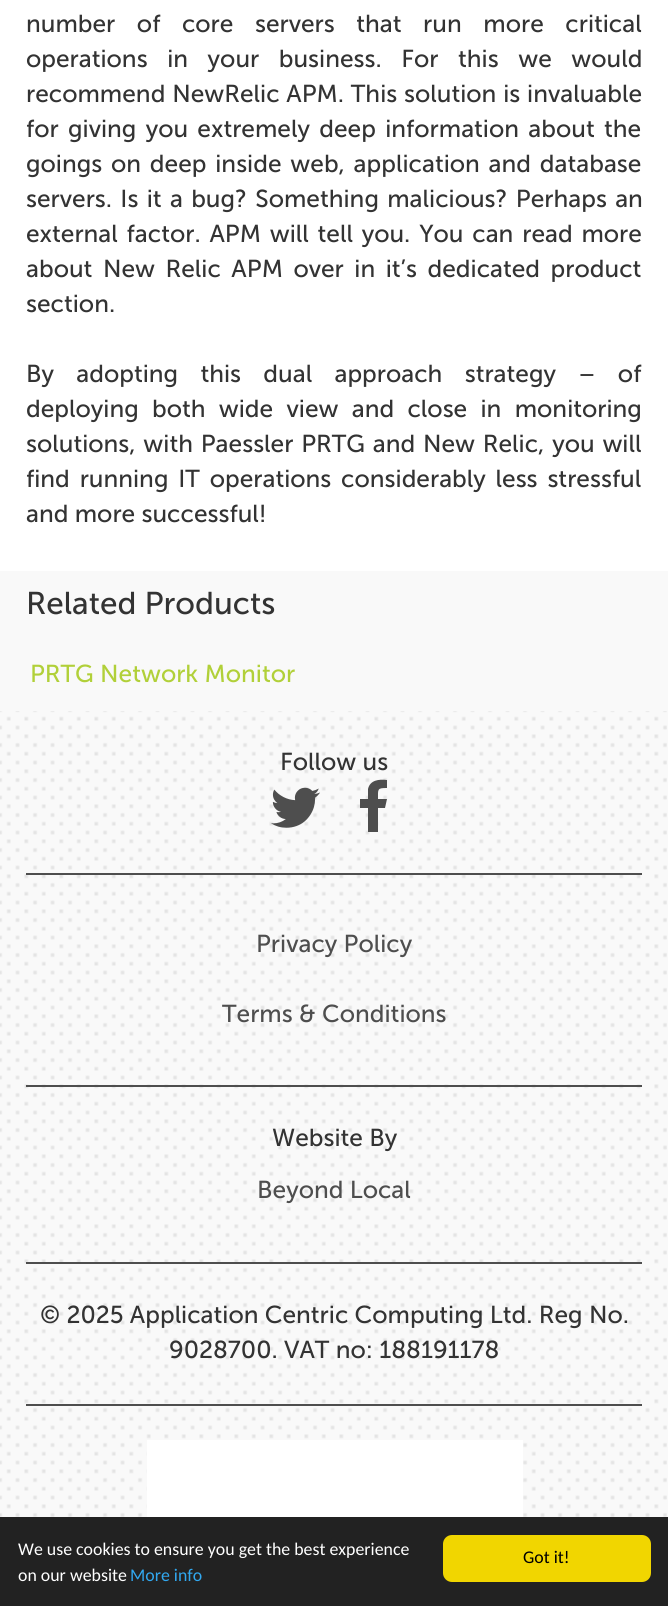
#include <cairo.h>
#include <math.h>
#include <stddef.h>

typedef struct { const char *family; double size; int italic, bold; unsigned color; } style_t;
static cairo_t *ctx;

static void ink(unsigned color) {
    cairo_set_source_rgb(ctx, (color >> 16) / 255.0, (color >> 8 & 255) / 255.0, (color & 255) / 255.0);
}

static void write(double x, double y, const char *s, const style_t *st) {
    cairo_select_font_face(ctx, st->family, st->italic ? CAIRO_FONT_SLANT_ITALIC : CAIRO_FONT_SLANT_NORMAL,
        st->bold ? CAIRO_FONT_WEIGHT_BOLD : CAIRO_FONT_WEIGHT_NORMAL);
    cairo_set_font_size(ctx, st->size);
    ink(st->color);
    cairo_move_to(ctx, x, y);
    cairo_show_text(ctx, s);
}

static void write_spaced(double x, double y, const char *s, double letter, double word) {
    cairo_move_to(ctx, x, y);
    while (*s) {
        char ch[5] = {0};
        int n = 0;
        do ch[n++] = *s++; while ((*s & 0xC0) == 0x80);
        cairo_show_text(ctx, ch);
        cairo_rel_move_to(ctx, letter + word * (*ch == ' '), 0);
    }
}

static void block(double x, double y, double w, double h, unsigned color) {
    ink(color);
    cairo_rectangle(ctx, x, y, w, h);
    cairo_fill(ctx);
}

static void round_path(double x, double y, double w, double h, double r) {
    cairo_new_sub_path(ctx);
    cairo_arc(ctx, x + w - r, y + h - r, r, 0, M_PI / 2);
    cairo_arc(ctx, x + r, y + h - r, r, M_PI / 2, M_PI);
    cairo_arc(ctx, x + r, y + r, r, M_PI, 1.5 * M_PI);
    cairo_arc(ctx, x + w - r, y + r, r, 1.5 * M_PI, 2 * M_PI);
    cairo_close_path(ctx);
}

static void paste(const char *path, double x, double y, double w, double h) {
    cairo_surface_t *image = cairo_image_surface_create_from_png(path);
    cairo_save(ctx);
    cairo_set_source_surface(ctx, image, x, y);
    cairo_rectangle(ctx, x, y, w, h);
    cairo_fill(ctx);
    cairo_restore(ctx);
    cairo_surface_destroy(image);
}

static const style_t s1 = {"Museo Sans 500", 24.5, 0, 0, 0x333333};
static const style_t s2 = {"Museo Sans 500", 31.5, 0, 0, 0x333333};
static const style_t s3 = {"Museo Sans 500", 24.5, 0, 0, 0xb1d039};
static const style_t s4 = {"Museo Sans 500", 24.5, 0, 0, 0x4e4e4e};
static const style_t s5 = {"Carlito", 17.85, 0, 0, 0xffffff};
static const style_t s6 = {"Carlito", 17.85, 0, 0, 0x31a8f0};
static const style_t s7 = {"Carlito", 17.85, 0, 0, 0x000000};

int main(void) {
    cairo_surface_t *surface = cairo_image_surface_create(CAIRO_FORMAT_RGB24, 668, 1606);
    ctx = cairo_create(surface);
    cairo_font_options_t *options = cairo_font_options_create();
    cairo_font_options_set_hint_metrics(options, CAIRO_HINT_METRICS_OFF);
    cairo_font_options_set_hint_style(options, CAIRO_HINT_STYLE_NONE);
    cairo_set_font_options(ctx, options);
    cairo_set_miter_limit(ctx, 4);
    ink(0xffffff);
    cairo_paint(ctx);
    cairo_select_font_face(ctx, "Museo Sans 500", CAIRO_FONT_SLANT_NORMAL, CAIRO_FONT_WEIGHT_NORMAL);
    cairo_set_font_size(ctx, 24.5);
    ink(0x333333);
    write_spaced(26, 32, "number of core servers that run more critical", 0, 15.25);
    write_spaced(26, 67, "operations in your business. For this we would", 0, 13.25);
    write_spaced(26, 102, "recommend NewRelic APM. This solution is invaluable", 0, 0.5);
    write_spaced(26, 137, "for giving you extremely deep information about the", 0, 3);
    write_spaced(26, 172, "goings on deep inside web, application and database", 0, 2.5);
    write_spaced(26, 207, "servers. Is it a bug? Something malicious? Perhaps an", 0, 2);
    write_spaced(26, 242, "external factor. APM will tell you. You can read more", 0, 2.5);
    write_spaced(26, 277, "about New Relic APM over in it’s dedicated product", 0, 4.25);
    write(26, 312, "section.", &s1);
    write_spaced(26, 382, "By adopting this dual approach strategy – of", 0, 16);
    write_spaced(26, 417, "deploying both wide view and close in monitoring", 0, 7);
    write_spaced(26, 452, "solutions, with Paessler PRTG and New Relic, you will", 0, 1.5);
    write_spaced(26, 487, "find running IT operations considerably less stressful", 0, 3.5);
    write(26, 522, "and more successful!", &s1);
    block(0, 571, 668, 946, 0xf9f9f9);
    write(26, 614, "Related Products", &s2);
    write(30, 682, "PRTG Network Monitor", &s3);
    paste("pic1.png", 0, 711, 667, 806);
    write(280, 770, "Follow us", &s1);
    paste("pic2.png", 271, 787, 49, 41);
    ink(0x4e4e4e);
    cairo_new_path(ctx);
    cairo_move_to(ctx, 387, 780);
    cairo_line_to(ctx, 387, 788);
    cairo_curve_to(ctx, 377, 788, 378, 789, 378, 799);
    cairo_line_to(ctx, 387, 799);
    cairo_line_to(ctx, 385, 808);
    cairo_line_to(ctx, 378, 808);
    cairo_line_to(ctx, 378, 832);
    cairo_line_to(ctx, 368, 832);
    cairo_line_to(ctx, 368, 808);
    cairo_line_to(ctx, 360, 808);
    cairo_line_to(ctx, 360, 799);
    cairo_line_to(ctx, 368, 799);
    cairo_line_to(ctx, 368, 789);
    cairo_curve_to(ctx, 370, 780, 379, 779, 387, 780);
    cairo_close_path(ctx);
    cairo_fill(ctx);
    block(26, 873, 616, 2, 0x4e4e4e);
    write(256, 952, "Privacy Policy", &s4);
    write(222, 1022, "Terms & Conditions", &s4);
    block(26, 1085, 616, 2, 0x4e4e4e);
    write(272, 1146, "Website By", &s1);
    write(257, 1198, "Beyond Local", &s4);
    block(26, 1262, 616, 2, 0x4e4e4e);
    write(40, 1323, "© 2025 Application Centric Computing Ltd. Reg No.", &s1);
    write(169, 1358, "9028700. VAT no: 188191178", &s1);
    block(26, 1404, 616, 2, 0x4e4e4e);
    block(147, 1440, 376, 77, 0xffffff);
    block(0, 1517, 668, 89, 0x222222);
    write(18, 1555, "We use cookies to ensure you get the best experience", &s5);
    write(18, 1581, "on our website", &s5);
    write(130, 1581, "More info", &s6);
    ink(0xf1d600);
    round_path(443, 1535, 208, 47, 9);
    cairo_fill(ctx);
    write(523, 1563, "Got it!", &s7);
    cairo_surface_write_to_png(surface, "screenshot.png");
    cairo_font_options_destroy(options);
    cairo_destroy(ctx);
    cairo_surface_destroy(surface);
    return 0;
}
